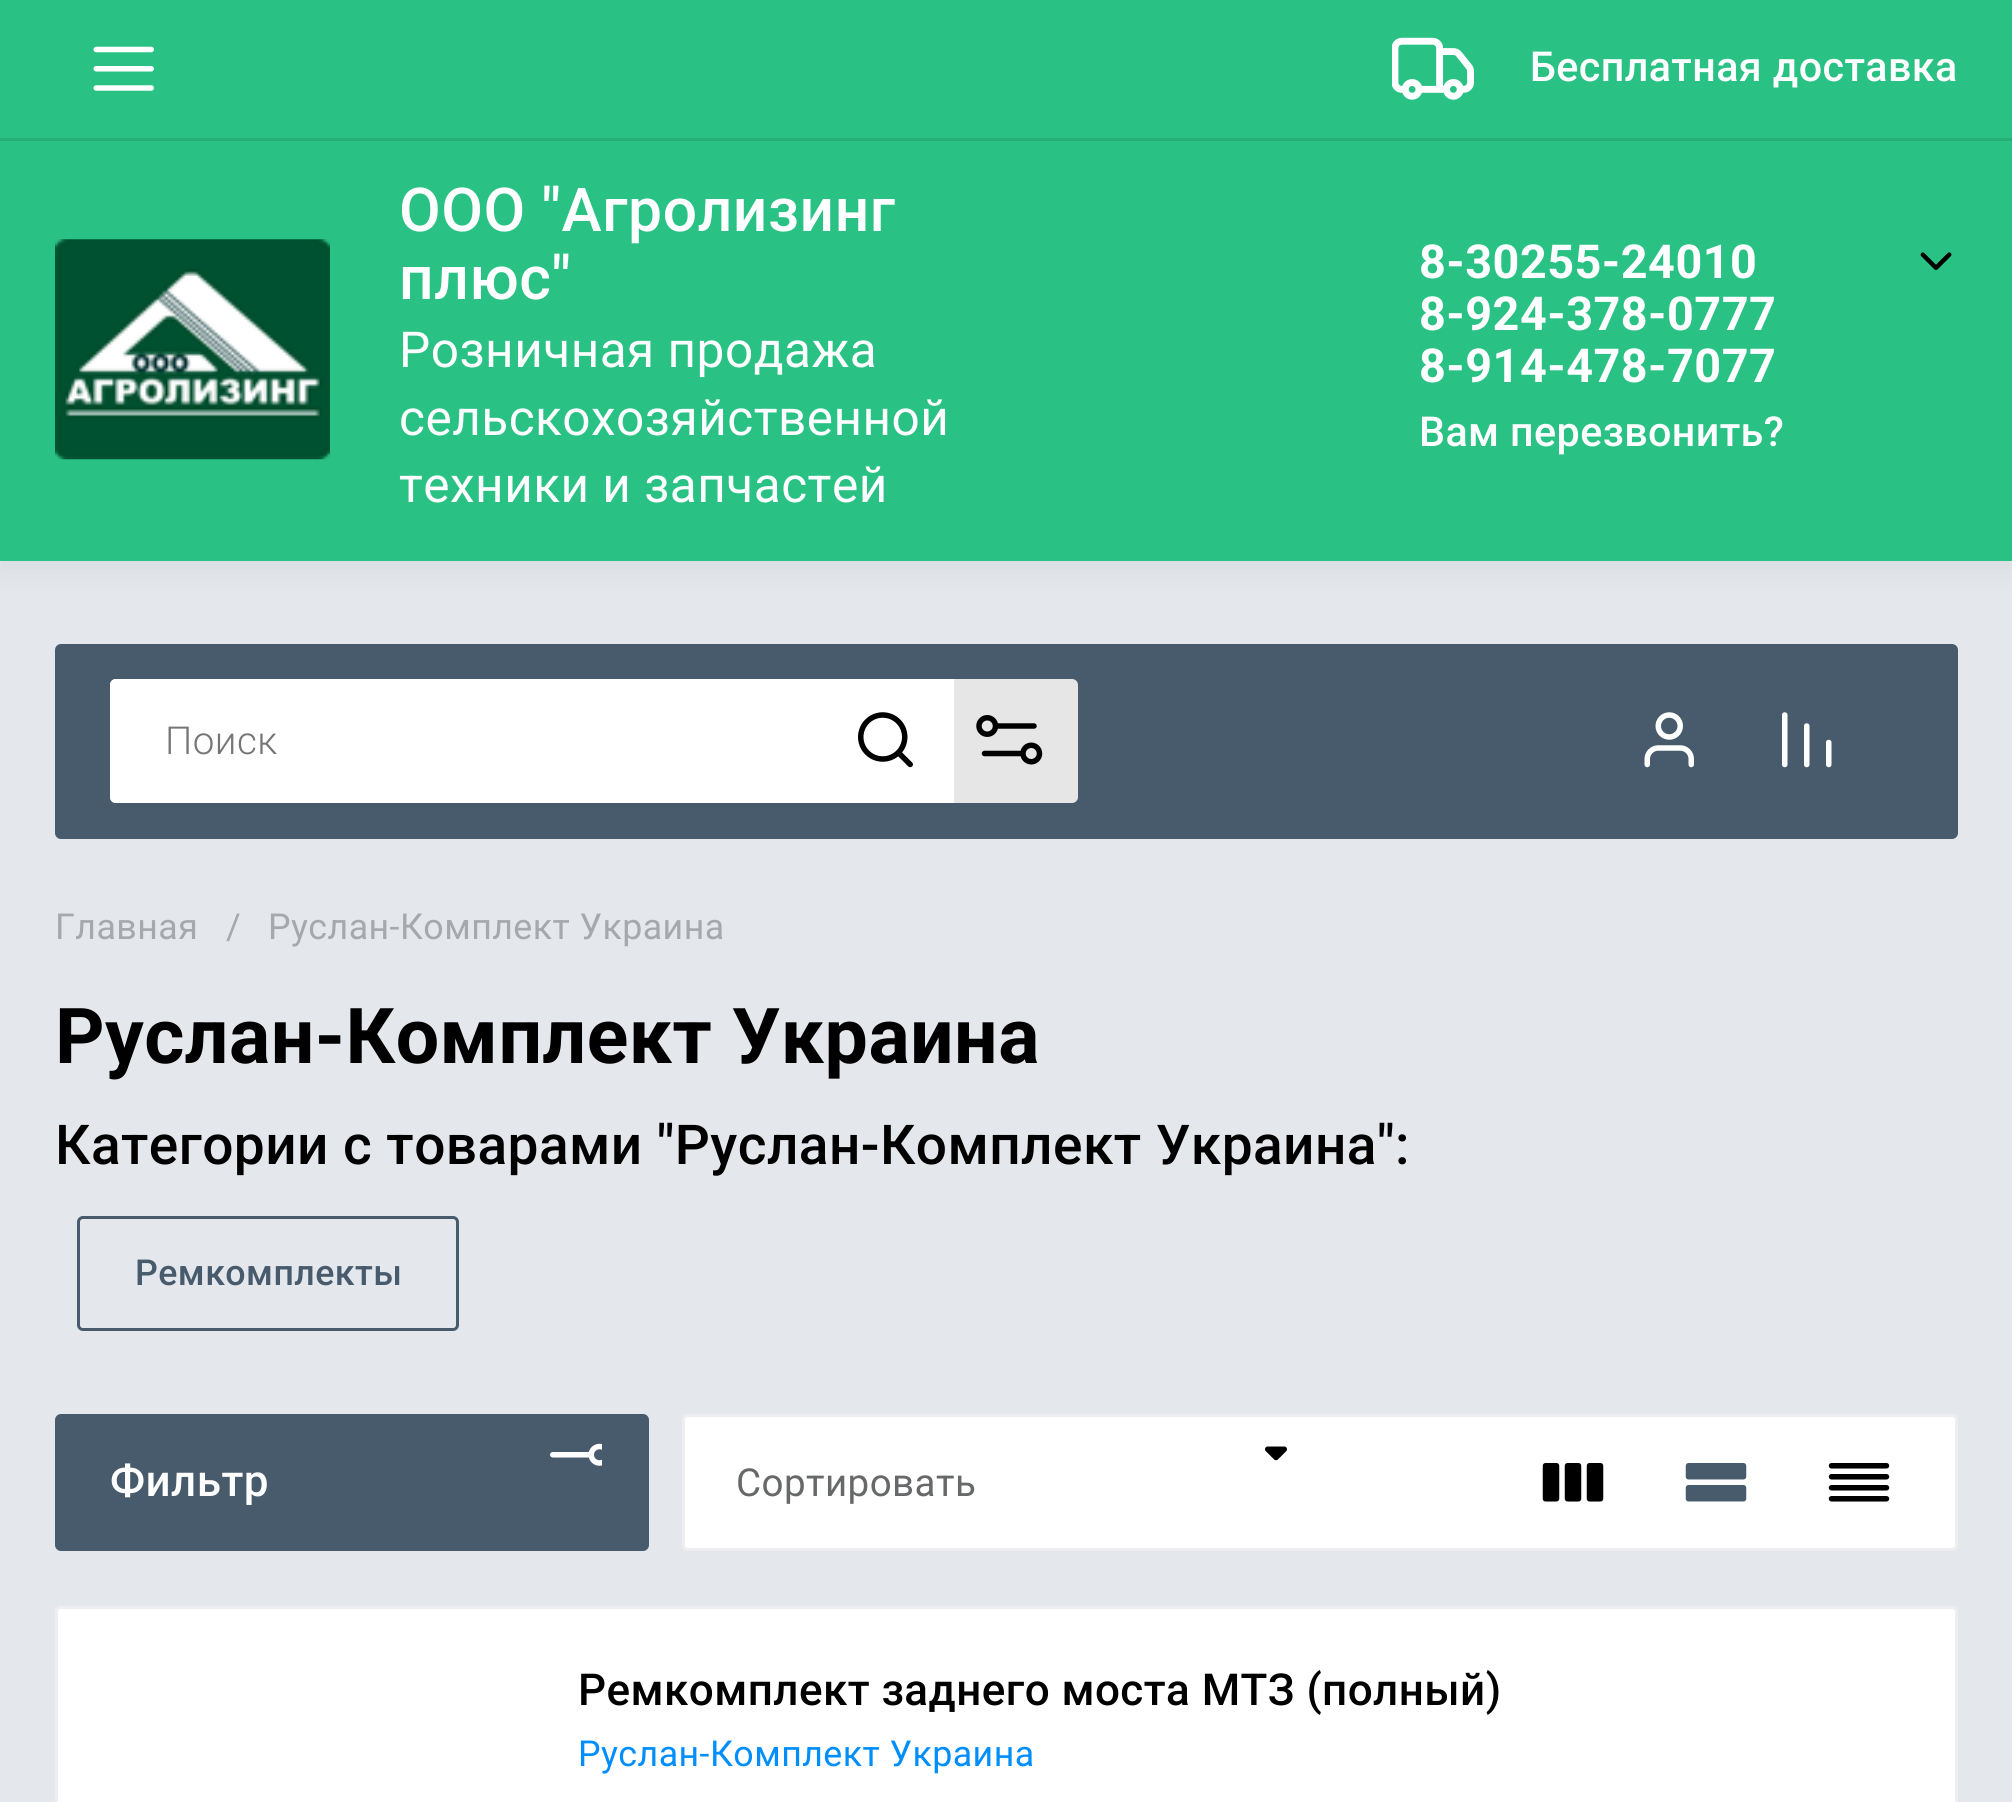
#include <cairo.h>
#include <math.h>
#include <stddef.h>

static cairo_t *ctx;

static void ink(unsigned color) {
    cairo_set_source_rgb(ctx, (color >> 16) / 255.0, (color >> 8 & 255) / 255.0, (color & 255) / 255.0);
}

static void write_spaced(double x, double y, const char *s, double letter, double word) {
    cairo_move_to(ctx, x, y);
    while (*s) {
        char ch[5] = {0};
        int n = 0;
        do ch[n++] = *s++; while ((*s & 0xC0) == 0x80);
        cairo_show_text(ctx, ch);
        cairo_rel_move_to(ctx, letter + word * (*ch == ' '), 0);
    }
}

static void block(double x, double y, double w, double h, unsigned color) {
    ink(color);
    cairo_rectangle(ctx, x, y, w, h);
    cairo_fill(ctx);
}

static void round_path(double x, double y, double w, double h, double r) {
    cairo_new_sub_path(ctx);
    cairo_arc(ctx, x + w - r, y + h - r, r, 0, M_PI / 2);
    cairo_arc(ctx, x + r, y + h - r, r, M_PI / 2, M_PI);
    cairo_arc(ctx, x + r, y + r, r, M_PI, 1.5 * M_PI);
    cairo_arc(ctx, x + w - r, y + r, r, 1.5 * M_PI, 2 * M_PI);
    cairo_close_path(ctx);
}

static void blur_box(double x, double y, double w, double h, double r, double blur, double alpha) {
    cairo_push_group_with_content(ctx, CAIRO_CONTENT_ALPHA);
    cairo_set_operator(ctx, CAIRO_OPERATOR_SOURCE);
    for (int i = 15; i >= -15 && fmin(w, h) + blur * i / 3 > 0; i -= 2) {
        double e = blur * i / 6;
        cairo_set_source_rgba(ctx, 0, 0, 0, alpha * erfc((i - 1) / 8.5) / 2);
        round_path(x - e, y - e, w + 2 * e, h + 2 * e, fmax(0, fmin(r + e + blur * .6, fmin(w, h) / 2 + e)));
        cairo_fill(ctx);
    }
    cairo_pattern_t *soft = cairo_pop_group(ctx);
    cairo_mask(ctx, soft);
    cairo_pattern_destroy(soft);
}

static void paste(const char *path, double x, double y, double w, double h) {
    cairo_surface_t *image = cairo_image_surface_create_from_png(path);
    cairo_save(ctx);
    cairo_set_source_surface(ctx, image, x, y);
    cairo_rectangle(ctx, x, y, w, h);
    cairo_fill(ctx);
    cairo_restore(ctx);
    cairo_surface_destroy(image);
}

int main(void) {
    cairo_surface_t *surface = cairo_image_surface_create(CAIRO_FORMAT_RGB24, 2012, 1802);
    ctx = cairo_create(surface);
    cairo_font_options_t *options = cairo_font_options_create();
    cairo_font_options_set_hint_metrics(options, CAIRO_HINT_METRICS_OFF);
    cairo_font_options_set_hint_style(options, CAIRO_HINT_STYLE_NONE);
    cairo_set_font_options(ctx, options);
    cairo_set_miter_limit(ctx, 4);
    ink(0xe4e7ec);
    cairo_paint(ctx);
    ink(0x000000);
    blur_box(0, 11, 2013, 561, 0, 14, 0.05);
    block(0, 0, 2012, 561, 0x2ac284);
    paste("pic1.png", 93, 46, 61, 45);
    paste("pic2.png", 1392, 37, 82, 63);
    cairo_select_font_face(ctx, "Roboto Medium", CAIRO_FONT_SLANT_NORMAL, CAIRO_FONT_WEIGHT_NORMAL);
    cairo_set_font_size(ctx, 41.25);
    ink(0xffffff);
    write_spaced(1530, 81, "Бесплатная доставка", 0.4, 0);
    block(0, 138, 2012, 3, 0x26af77);
    paste("pic3.png", 55, 239, 275, 221);
    cairo_set_font_size(ctx, 60.5);
    ink(0xffffff);
    write_spaced(399, 231, "ООО \"Агролизинг", 0.6, 0);
    write_spaced(399, 299, "плюс\"", 0.6, 0);
    cairo_select_font_face(ctx, "Roboto", CAIRO_FONT_SLANT_NORMAL, CAIRO_FONT_WEIGHT_NORMAL);
    cairo_set_font_size(ctx, 49.5);
    write_spaced(399, 367, "Розничная продажа", 0.5, 0);
    write_spaced(399, 435, "сельскохозяйственной", 0.5, 0);
    write_spaced(399, 502, "техники и запчастей", 0.5, 0);
    cairo_select_font_face(ctx, "Roboto", CAIRO_FONT_SLANT_NORMAL, CAIRO_FONT_WEIGHT_BOLD);
    cairo_set_font_size(ctx, 46.75);
    write_spaced(1419, 278, "8-30255-24010", 0.5, 0);
    write_spaced(1419, 330, "8-924-378-0777", 0.5, 0);
    write_spaced(1419, 382, "8-914-478-7077", 0.5, 0);
    cairo_select_font_face(ctx, "Roboto Medium", CAIRO_FONT_SLANT_NORMAL, CAIRO_FONT_WEIGHT_NORMAL);
    cairo_set_font_size(ctx, 41.25);
    write_spaced(1419, 446, "Вам перезвонить?", 0.4, 0);
    paste("pic4.png", 1920, 252, 32, 18);
    ink(0x485b6d);
    round_path(55, 644, 1903, 195, 6);
    cairo_fill(ctx);
    ink(0xffffff);
    round_path(110, 679, 968, 124, 6);
    cairo_fill(ctx);
    cairo_new_path(ctx);
    cairo_move_to(ctx, 116, 679);
    cairo_line_to(ctx, 817, 679);
    cairo_line_to(ctx, 817, 803);
    cairo_line_to(ctx, 116, 803);
    cairo_curve_to(ctx, 112.5, 803, 110, 800.5, 110, 797);
    cairo_line_to(ctx, 110, 685);
    cairo_curve_to(ctx, 110, 681.5, 112.5, 679, 116, 679);
    cairo_close_path(ctx);
    cairo_fill(ctx);
    cairo_select_font_face(ctx, "Roboto Light", CAIRO_FONT_SLANT_NORMAL, CAIRO_FONT_WEIGHT_NORMAL);
    cairo_set_font_size(ctx, 38.5);
    ink(0x757575);
    write_spaced(165, 754, "Поиск", 0.5, 0);
    paste("pic5.png", 858, 712, 55, 56);
    cairo_set_source_rgba(ctx, 0, 0, 0, 0.1);
    cairo_new_path(ctx);
    cairo_move_to(ctx, 954, 679);
    cairo_line_to(ctx, 1072, 679);
    cairo_curve_to(ctx, 1075.5, 679, 1078, 681.5, 1078, 685);
    cairo_line_to(ctx, 1078, 797);
    cairo_curve_to(ctx, 1078, 800.5, 1075.5, 803, 1072, 803);
    cairo_line_to(ctx, 954, 803);
    cairo_close_path(ctx);
    cairo_fill(ctx);
    paste("pic6.png", 976, 715, 67, 50);
    paste("pic7.png", 1644, 712, 50, 56);
    paste("pic8.png", 1782, 712, 50, 56);
    cairo_select_font_face(ctx, "Roboto", CAIRO_FONT_SLANT_NORMAL, CAIRO_FONT_WEIGHT_NORMAL);
    cairo_set_font_size(ctx, 35.75);
    ink(0xa6a8ab);
    write_spaced(55, 939, "Главная", 0.45, 0);
    write_spaced(226, 939, "/", 0.45, 0);
    write_spaced(268, 939, "Руслан-Комплект Украина", 0.45, 0);
    cairo_select_font_face(ctx, "Roboto", CAIRO_FONT_SLANT_NORMAL, CAIRO_FONT_WEIGHT_BOLD);
    cairo_set_font_size(ctx, 77);
    ink(0x000000);
    write_spaced(55, 1063, "Руслан-Комплект Украина", 0.45, 0);
    cairo_select_font_face(ctx, "Roboto Medium", CAIRO_FONT_SLANT_NORMAL, CAIRO_FONT_WEIGHT_NORMAL);
    cairo_set_font_size(ctx, 55);
    write_spaced(55, 1164, "Категории с товарами \"Руслан-Комплект Украина\":", 0.45, 0);
    round_path(78.5, 1217.5, 379, 112, 4.5);
    ink(0x485b6d);
    cairo_set_line_width(ctx, 3);
    cairo_stroke(ctx);
    cairo_set_font_size(ctx, 35.75);
    write_spaced(135, 1285, "Ремкомплекты", 0.45, 0);
    round_path(55, 1414, 594, 137, 6);
    cairo_fill(ctx);
    paste("pic9.png", 550, 1443, 52, 23);
    cairo_set_font_size(ctx, 44);
    ink(0xffffff);
    write_spaced(110, 1496, "Фильтр", 0.45, 0);
    round_path(682, 1414, 1276, 137, 6);
    cairo_fill(ctx);
    round_path(683.5, 1415.5, 1273, 134, 4.5);
    cairo_set_source_rgba(ctx, 0.824, 0.827, 0.878, 0.4);
    cairo_stroke(ctx);
    paste("pic10.png", 1265, 1446, 22, 15);
    cairo_select_font_face(ctx, "Roboto", CAIRO_FONT_SLANT_NORMAL, CAIRO_FONT_WEIGHT_NORMAL);
    cairo_set_font_size(ctx, 38.5);
    ink(0x676869);
    write_spaced(736, 1496, "Сортировать", 0.45, 0);
    paste("pic11.png", 1542, 1463, 62, 39);
    paste("pic12.png", 1685, 1463, 62, 39);
    paste("pic13.png", 1828, 1463, 62, 39);
    ink(0xffffff);
    round_path(55, 1606, 1903, 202, 6);
    cairo_fill(ctx);
    round_path(56.5, 1607.5, 1900, 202, 4.5);
    cairo_set_source_rgba(ctx, 0.824, 0.827, 0.878, 0.4);
    cairo_stroke(ctx);
    cairo_select_font_face(ctx, "Roboto Medium", CAIRO_FONT_SLANT_NORMAL, CAIRO_FONT_WEIGHT_NORMAL);
    cairo_set_font_size(ctx, 44);
    ink(0x000000);
    write_spaced(578, 1705, "Ремкомплект заднего моста МТЗ (полный)", 0.45, 0);
    cairo_select_font_face(ctx, "Roboto", CAIRO_FONT_SLANT_NORMAL, CAIRO_FONT_WEIGHT_NORMAL);
    cairo_set_font_size(ctx, 35.75);
    ink(0x008efc);
    write_spaced(578, 1766, "Руслан-Комплект Украина", 0.45, 0);
    cairo_surface_write_to_png(surface, "screenshot.png");
    cairo_font_options_destroy(options);
    cairo_destroy(ctx);
    cairo_surface_destroy(surface);
    return 0;
}
